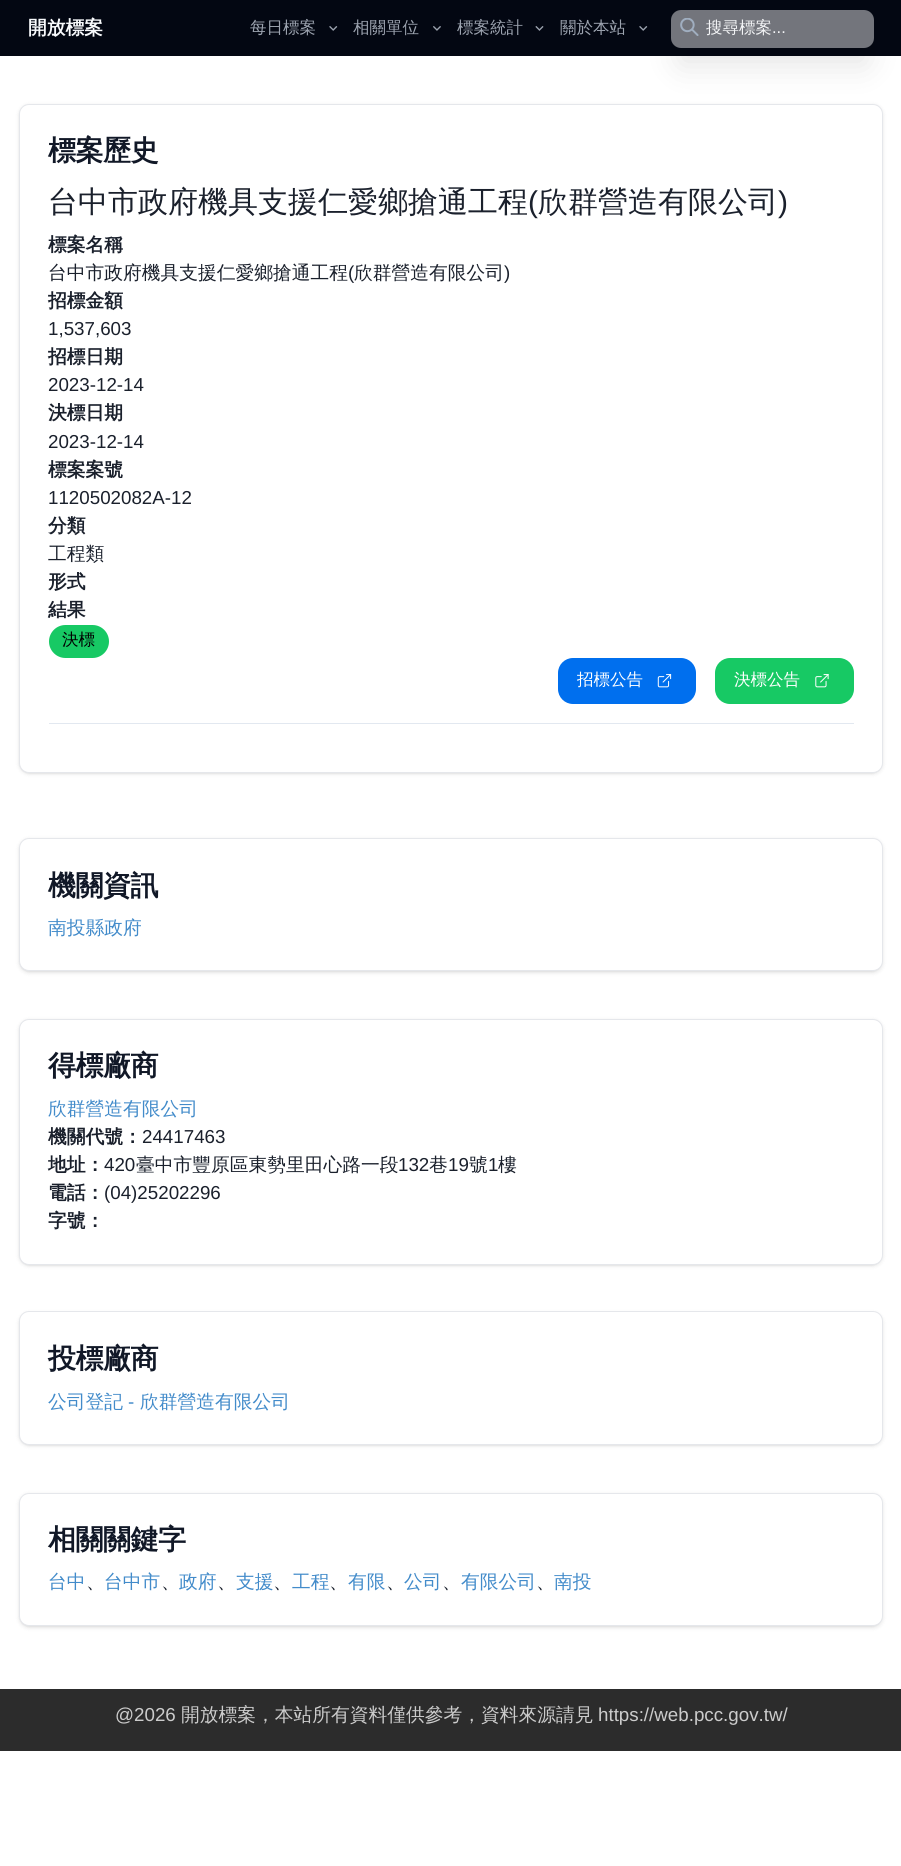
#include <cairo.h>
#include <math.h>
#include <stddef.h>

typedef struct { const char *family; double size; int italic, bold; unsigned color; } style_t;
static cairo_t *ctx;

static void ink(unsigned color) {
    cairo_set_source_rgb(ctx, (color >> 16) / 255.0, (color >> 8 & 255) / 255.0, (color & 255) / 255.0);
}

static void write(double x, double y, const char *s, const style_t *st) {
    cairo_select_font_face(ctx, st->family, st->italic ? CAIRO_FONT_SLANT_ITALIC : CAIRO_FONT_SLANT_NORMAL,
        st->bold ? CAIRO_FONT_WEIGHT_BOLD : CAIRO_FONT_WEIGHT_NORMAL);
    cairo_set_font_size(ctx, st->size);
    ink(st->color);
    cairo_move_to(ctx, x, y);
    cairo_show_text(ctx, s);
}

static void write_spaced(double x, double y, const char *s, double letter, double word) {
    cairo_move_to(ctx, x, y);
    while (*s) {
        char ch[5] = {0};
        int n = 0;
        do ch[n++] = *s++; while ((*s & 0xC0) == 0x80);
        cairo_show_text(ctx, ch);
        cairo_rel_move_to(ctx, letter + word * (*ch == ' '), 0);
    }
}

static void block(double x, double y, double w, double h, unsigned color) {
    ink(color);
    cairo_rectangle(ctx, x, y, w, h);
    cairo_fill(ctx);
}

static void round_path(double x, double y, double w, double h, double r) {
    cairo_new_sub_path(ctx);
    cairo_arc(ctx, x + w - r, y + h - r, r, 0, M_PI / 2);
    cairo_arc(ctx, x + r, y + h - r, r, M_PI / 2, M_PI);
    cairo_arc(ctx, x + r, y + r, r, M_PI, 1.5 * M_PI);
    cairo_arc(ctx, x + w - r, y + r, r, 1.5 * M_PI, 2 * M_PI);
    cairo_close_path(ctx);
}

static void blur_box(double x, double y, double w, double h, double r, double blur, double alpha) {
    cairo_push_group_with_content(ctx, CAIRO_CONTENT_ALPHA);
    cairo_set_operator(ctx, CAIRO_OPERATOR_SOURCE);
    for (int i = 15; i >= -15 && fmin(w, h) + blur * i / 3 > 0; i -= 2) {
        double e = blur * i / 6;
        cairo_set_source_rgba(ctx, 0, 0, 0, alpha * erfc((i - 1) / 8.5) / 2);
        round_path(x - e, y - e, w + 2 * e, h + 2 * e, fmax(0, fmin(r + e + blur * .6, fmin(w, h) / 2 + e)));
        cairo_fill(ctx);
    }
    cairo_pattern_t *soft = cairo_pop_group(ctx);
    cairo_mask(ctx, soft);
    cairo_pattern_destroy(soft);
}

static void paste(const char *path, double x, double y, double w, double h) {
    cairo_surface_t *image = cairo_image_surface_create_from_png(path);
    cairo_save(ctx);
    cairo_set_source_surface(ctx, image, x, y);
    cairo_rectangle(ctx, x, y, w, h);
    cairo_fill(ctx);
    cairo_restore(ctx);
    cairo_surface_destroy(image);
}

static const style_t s1 = {"WenQuanYi Zen Hei", 18.75, 0, 1, 0xf8fafc};
static const style_t s2 = {"WenQuanYi Zen Hei Medium", 16.5, 0, 0, 0x9ca3af};
static const style_t s3 = {"WenQuanYi Zen Hei Medium", 16.5, 0, 0, 0xf3f4f6};
static const style_t s4 = {"Liberation Sans", 16.5, 0, 0, 0xf3f4f6};
static const style_t s5 = {"WenQuanYi Zen Hei Medium", 30, 0, 0, 0x1a202c};
static const style_t s6 = {"Liberation Sans", 30, 0, 0, 0x1a202c};
static const style_t s7 = {"WenQuanYi Zen Hei", 18.75, 0, 1, 0x1a202c};
static const style_t s8 = {"WenQuanYi Zen Hei Medium", 18.75, 0, 0, 0x1a202c};
static const style_t s9 = {"Liberation Sans", 18.75, 0, 0, 0x1a202c};
static const style_t s10 = {"WenQuanYi Zen Hei Medium", 16.5, 0, 0, 0x000000};
static const style_t s11 = {"WenQuanYi Zen Hei Medium", 16.5, 0, 0, 0xffffff};
static const style_t s12 = {"WenQuanYi Zen Hei Medium", 18.75, 0, 0, 0x428bca};
static const style_t s13 = {"Liberation Sans", 18.75, 0, 0, 0x428bca};
static const style_t s14 = {"Liberation Sans", 18.75, 0, 0, 0xcccccc};
static const style_t s15 = {"WenQuanYi Zen Hei Medium", 18.75, 0, 0, 0xcccccc};

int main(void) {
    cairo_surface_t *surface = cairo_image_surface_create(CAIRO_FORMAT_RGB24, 901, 1866);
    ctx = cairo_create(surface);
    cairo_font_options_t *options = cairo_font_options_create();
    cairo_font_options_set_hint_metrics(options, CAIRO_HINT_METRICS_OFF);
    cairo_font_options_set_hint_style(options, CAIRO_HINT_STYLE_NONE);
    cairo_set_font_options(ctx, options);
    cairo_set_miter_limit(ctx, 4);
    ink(0xffffff);
    cairo_paint(ctx);
    block(0, 0, 901, 56, 0x030712);
    write(28, 34, "開放標案", &s1);
    write(250, 33, "每日標案", &s2);
    paste("pic1.png", 329, 26, 9, 5);
    write(353, 33, "相關單位", &s2);
    paste("pic2.png", 433, 26, 8, 5);
    write(457, 33, "標案統計", &s2);
    paste("pic3.png", 535, 26, 9, 5);
    write(560, 33, "關於本站", &s2);
    ink(0x000000);
    blur_box(20, 106, 861, 667, 9, 1, 0.1);
    blur_box(19, 105, 864, 669, 10, 2, 0.1);
    ink(0xffffff);
    round_path(19.5, 104.5, 863, 668, 9.5);
    cairo_fill_preserve(ctx);
    ink(0xe5e7eb);
    cairo_set_line_width(ctx, 1);
    cairo_stroke(ctx);
    ink(0x000000);
    blur_box(678, 41, 190, 25, 4, 15.5, 0.1);
    paste("pic1.png", 639, 26, 9, 5);
    ink(0x73757c);
    round_path(671, 10, 203, 38, 10);
    cairo_fill(ctx);
    paste("pic4.png", 680, 18, 19, 18);
    write(706, 33, "搜尋標案", &s3);
    write(772, 33, "...", &s4);
    cairo_select_font_face(ctx, "WenQuanYi Zen Hei", CAIRO_FONT_SLANT_NORMAL, CAIRO_FONT_WEIGHT_BOLD);
    cairo_set_font_size(ctx, 28);
    ink(0x111827);
    write_spaced(48, 160, "標案歷史", -0.5, 0);
    write(48, 212, "台中市政府機具支援仁愛鄉搶通工程", &s5);
    write(528, 212, "(", &s6);
    write(538, 212, "欣群營造有限公司", &s5);
    write(778, 212, ")", &s6);
    write(48, 251, "標案名稱", &s7);
    write(48, 279, "台中市政府機具支援仁愛鄉搶通工程", &s8);
    write(348, 279, "(", &s9);
    write(354, 279, "欣群營造有限公司", &s8);
    write(504, 279, ")", &s9);
    write(48, 307, "招標金額", &s7);
    write(48, 335, "1,537,603", &s9);
    write(48, 363, "招標日期", &s7);
    write(48, 391, "2023-12-14", &s9);
    write(48, 419, "決標日期", &s7);
    write(48, 448, "2023-12-14", &s9);
    write(48, 476, "標案案號", &s7);
    write(48, 504, "1120502082A-12", &s9);
    write(48, 532, "分類", &s7);
    write(48, 560, "工程類", &s8);
    write(48, 588, "形式", &s7);
    write(48, 616, "結果", &s7);
    ink(0x17c964);
    round_path(49, 625, 60, 33, 16.5);
    cairo_fill(ctx);
    write(62, 645, "決標", &s10);
    ink(0x006fee);
    round_path(558, 658, 138, 46, 15);
    cairo_fill(ctx);
    write(577, 685, "招標公告", &s11);
    paste("pic5.png", 657, 674, 15, 14);
    ink(0x17c964);
    round_path(715, 658, 139, 46, 15);
    cairo_fill(ctx);
    write(734, 685, "決標公告", &s11);
    paste("pic6.png", 815, 674, 14, 14);
    block(49, 723, 805, 1, 0xe2e8f0);
    ink(0x000000);
    blur_box(20, 840, 861, 131, 9, 1, 0.1);
    blur_box(19, 839, 864, 134, 10, 2, 0.1);
    ink(0xffffff);
    round_path(19.5, 838.5, 863, 132, 9.5);
    cairo_fill_preserve(ctx);
    ink(0xe5e7eb);
    cairo_stroke(ctx);
    cairo_select_font_face(ctx, "WenQuanYi Zen Hei", CAIRO_FONT_SLANT_NORMAL, CAIRO_FONT_WEIGHT_BOLD);
    cairo_set_font_size(ctx, 28);
    ink(0x111827);
    write_spaced(48, 895, "機關資訊", -0.5, 0);
    write(48, 934, "南投縣政府", &s12);
    ink(0x000000);
    blur_box(20, 1021, 861, 244, 9, 1, 0.1);
    blur_box(19, 1020, 864, 246, 10, 2, 0.1);
    ink(0xffffff);
    round_path(19.5, 1019.5, 863, 245, 9.5);
    cairo_fill_preserve(ctx);
    ink(0xe5e7eb);
    cairo_stroke(ctx);
    cairo_select_font_face(ctx, "WenQuanYi Zen Hei", CAIRO_FONT_SLANT_NORMAL, CAIRO_FONT_WEIGHT_BOLD);
    cairo_set_font_size(ctx, 28);
    ink(0x111827);
    write_spaced(48, 1075, "得標廠商", -0.5, 0);
    write(48, 1115, "欣群營造有限公司", &s12);
    write(48, 1143, "機關代號：", &s7);
    write(142, 1143, "24417463", &s9);
    write(48, 1171, "地址：", &s7);
    write(104, 1171, "420", &s9);
    write(136, 1171, "臺中市豐原區東勢里田心路一段", &s8);
    write(398, 1171, "132", &s9);
    write(429, 1171, "巷", &s8);
    write(448, 1171, "19", &s9);
    write(469, 1171, "號", &s8);
    write(488, 1171, "1", &s9);
    write(498, 1171, "樓", &s8);
    write(48, 1199, "電話：", &s7);
    write(104, 1199, "(04)25202296", &s9);
    write(48, 1227, "字號：", &s7);
    ink(0x000000);
    blur_box(20, 1314, 861, 131, 9, 1, 0.1);
    blur_box(19, 1313, 864, 133, 10, 2, 0.1);
    ink(0xffffff);
    round_path(19.5, 1311.5, 863, 133, 9.5);
    cairo_fill_preserve(ctx);
    ink(0xe5e7eb);
    cairo_stroke(ctx);
    cairo_set_font_size(ctx, 28);
    ink(0x111827);
    write_spaced(48, 1368, "投標廠商", -0.5, 0);
    write(48, 1408, "公司登記", &s12);
    write(128, 1408, "-", &s13);
    write(140, 1408, "欣群營造有限公司", &s12);
    ink(0x000000);
    blur_box(20, 1495, 861, 131, 9, 1, 0.1);
    blur_box(19, 1494, 864, 134, 10, 2, 0.1);
    ink(0xffffff);
    round_path(19.5, 1493.5, 863, 132, 9.5);
    cairo_fill_preserve(ctx);
    ink(0xe5e7eb);
    cairo_stroke(ctx);
    cairo_select_font_face(ctx, "WenQuanYi Zen Hei", CAIRO_FONT_SLANT_NORMAL, CAIRO_FONT_WEIGHT_BOLD);
    cairo_set_font_size(ctx, 28);
    ink(0x111827);
    write_spaced(48, 1549, "相關關鍵字", -0.5, 0);
    write(48, 1588, "台中", &s12);
    write(86, 1588, "、", &s8);
    write(104, 1588, "台中市", &s12);
    write(161, 1588, "、", &s8);
    write(179, 1588, "政府", &s12);
    write(217, 1588, "、", &s8);
    write(236, 1588, "支援", &s12);
    write(273, 1588, "、", &s8);
    write(292, 1588, "工程", &s12);
    write(329, 1588, "、", &s8);
    write(348, 1588, "有限", &s12);
    write(386, 1588, "、", &s8);
    write(404, 1588, "公司", &s12);
    write(442, 1588, "、", &s8);
    write(461, 1588, "有限公司", &s12);
    write(536, 1588, "、", &s8);
    write(554, 1588, "南投", &s12);
    block(0, 1689, 901, 62, 0x2c2c2c);
    write(115, 1721, "@2026", &s14);
    write(181, 1721, "開放標案，本站所有資料僅供參考，資料來源請見", &s15);
    write(598, 1721, "https://web.pcc.gov.tw/", &s14);
    cairo_surface_write_to_png(surface, "screenshot.png");
    cairo_font_options_destroy(options);
    cairo_destroy(ctx);
    cairo_surface_destroy(surface);
    return 0;
}
